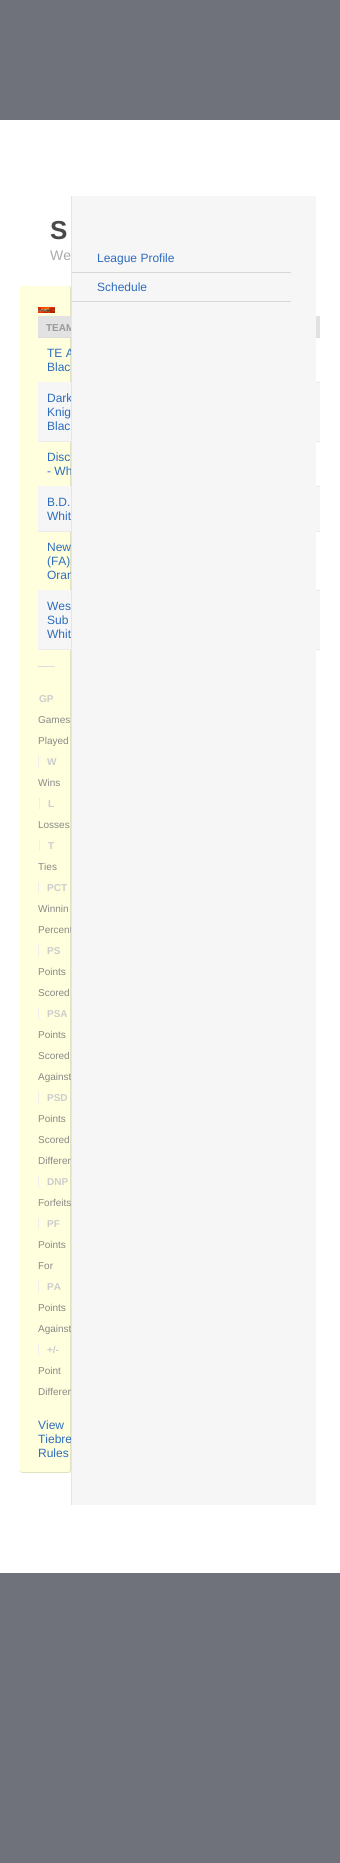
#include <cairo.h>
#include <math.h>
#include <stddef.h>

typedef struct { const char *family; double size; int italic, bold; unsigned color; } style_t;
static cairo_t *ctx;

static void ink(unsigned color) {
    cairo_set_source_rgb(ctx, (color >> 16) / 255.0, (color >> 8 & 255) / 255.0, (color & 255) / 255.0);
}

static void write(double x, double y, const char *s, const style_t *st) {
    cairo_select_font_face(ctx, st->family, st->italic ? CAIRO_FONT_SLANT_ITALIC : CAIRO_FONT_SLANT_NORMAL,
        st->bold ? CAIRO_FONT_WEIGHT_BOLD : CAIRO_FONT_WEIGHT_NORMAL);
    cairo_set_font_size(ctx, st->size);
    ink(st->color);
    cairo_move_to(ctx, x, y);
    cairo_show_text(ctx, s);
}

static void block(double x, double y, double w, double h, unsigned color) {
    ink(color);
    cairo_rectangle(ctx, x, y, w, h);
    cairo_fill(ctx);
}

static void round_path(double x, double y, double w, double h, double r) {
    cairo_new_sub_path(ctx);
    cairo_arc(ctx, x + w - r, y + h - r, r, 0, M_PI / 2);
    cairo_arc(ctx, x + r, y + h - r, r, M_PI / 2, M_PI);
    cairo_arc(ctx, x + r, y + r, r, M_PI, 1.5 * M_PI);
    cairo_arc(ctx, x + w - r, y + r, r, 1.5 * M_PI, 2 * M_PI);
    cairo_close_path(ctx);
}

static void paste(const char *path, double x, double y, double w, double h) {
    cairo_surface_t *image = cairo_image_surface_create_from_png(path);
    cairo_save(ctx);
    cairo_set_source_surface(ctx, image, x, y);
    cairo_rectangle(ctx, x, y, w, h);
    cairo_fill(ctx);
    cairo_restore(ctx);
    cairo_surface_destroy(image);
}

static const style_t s1 = {"Liberation Sans", 26, 0, 1, 0x484848};
static const style_t s2 = {"Liberation Sans", 14, 0, 0, 0xaaaaaa};
static const style_t s3 = {"Liberation Sans", 10, 0, 1, 0x999999};
static const style_t s4 = {"Liberation Sans", 12, 0, 0, 0x2d6cbe};
static const style_t s5 = {"Liberation Sans", 10, 0, 1, 0xcccccc};
static const style_t s6 = {"Liberation Sans", 10, 0, 0, 0x888888};

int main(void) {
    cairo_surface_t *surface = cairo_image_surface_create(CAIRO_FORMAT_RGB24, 340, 1863);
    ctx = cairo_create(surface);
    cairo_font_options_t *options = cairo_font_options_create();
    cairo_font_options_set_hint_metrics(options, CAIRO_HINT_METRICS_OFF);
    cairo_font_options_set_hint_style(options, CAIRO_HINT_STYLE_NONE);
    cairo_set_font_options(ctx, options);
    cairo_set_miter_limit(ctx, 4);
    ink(0x6f727a);
    cairo_paint(ctx);
    block(0, 120, 340, 1453, 0xffffff);
    write(50, 239, "S", &s1);
    write(50, 260, "We", &s2);
    ink(0xffffdd);
    round_path(20, 286, 51, 1187, 3);
    cairo_fill(ctx);
    cairo_set_source_rgba(ctx, 0, 0, 0, 0.12);
    cairo_set_fill_rule(ctx, CAIRO_FILL_RULE_EVEN_ODD);
    cairo_new_path(ctx);
    cairo_move_to(ctx, 23, 286);
    cairo_line_to(ctx, 68, 286);
    cairo_curve_to(ctx, 70, 286, 71, 287, 71, 289);
    cairo_line_to(ctx, 71, 1470);
    cairo_curve_to(ctx, 71, 1472, 70, 1473, 68, 1473);
    cairo_line_to(ctx, 23, 1473);
    cairo_curve_to(ctx, 21, 1473, 20, 1472, 20, 1470);
    cairo_line_to(ctx, 20, 289);
    cairo_curve_to(ctx, 20, 287, 21, 286, 23, 286);
    cairo_close_path(ctx);
    cairo_move_to(ctx, 23, 286);
    cairo_line_to(ctx, 68, 286);
    cairo_curve_to(ctx, 69, 286, 70, 287, 70, 289);
    cairo_line_to(ctx, 70, 1470);
    cairo_curve_to(ctx, 70, 1471, 69, 1472, 68, 1472);
    cairo_line_to(ctx, 23, 1472);
    cairo_curve_to(ctx, 21, 1472, 20, 1471, 20, 1470);
    cairo_line_to(ctx, 20, 289);
    cairo_curve_to(ctx, 20, 287, 21, 286, 23, 286);
    cairo_close_path(ctx);
    cairo_fill(ctx);
    paste("pic1.png", 38, 307, 17, 6);
    block(38, 316, 33, 21, 0xe2e2e2);
    write(46, 331, "TEAM", &s3);
    block(316, 316, 4, 21, 0xe2e2e2);
    block(38, 337, 33, 1, 0xdddddd);
    write(47, 357, "TE A", &s4);
    write(47, 371, "Blac", &s4);
    block(316, 337, 4, 1, 0xdddddd);
    block(316, 382, 4, 1, 0xebebeb);
    block(38, 441, 33, 1, 0xebebeb);
    block(38, 382, 33, 59, 0xf6f6f6);
    write(47, 402, "Dark", &s4);
    write(47, 416, "Knig", &s4);
    write(47, 430, "Blac", &s4);
    block(316, 383, 4, 58, 0xf6f6f6);
    block(316, 441, 4, 1, 0xebebeb);
    write(47, 461, "Disc", &s4);
    write(47, 475, "- Wh", &s4);
    block(316, 486, 4, 1, 0xebebeb);
    block(38, 531, 33, 1, 0xebebeb);
    block(38, 486, 33, 45, 0xf6f6f6);
    write(47, 506, "B.D.", &s4);
    write(47, 520, "Whit", &s4);
    block(316, 487, 4, 44, 0xf6f6f6);
    block(316, 531, 4, 1, 0xebebeb);
    write(47, 551, "New", &s4);
    write(47, 565, "(FA)", &s4);
    write(47, 579, "Oran", &s4);
    block(316, 590, 4, 1, 0xebebeb);
    block(38, 649, 33, 1, 0xebebeb);
    block(38, 590, 33, 59, 0xf6f6f6);
    write(47, 610, "Wes", &s4);
    write(47, 624, "Sub", &s4);
    write(47, 638, "Whit", &s4);
    block(316, 591, 4, 58, 0xf6f6f6);
    block(316, 649, 4, 1, 0xebebeb);
    block(38, 666, 17, 1, 0xdddddd);
    write(39, 702, "GP", &s5);
    write(38, 723, "Games", &s6);
    write(38, 744, "Played", &s6);
    write(47, 765, "W", &s5);
    block(38, 756, 1, 11, 0xeeeeee);
    write(38, 786, "Wins", &s6);
    write(48, 807, "L", &s5);
    block(39, 798, 1, 11, 0xeeeeee);
    write(38, 828, "Losses", &s6);
    write(48, 849, "T", &s5);
    block(39, 840, 1, 11, 0xeeeeee);
    write(38, 870, "Ties", &s6);
    write(47, 891, "PCT", &s5);
    block(38, 882, 1, 11, 0xeeeeee);
    write(38, 912, "Winnin", &s6);
    write(38, 933, "Percent", &s6);
    write(47, 954, "PS", &s5);
    block(38, 945, 1, 11, 0xeeeeee);
    write(38, 975, "Points", &s6);
    write(38, 996, "Scored", &s6);
    write(47, 1017, "PSA", &s5);
    block(38, 1008, 1, 11, 0xeeeeee);
    write(38, 1038, "Points", &s6);
    write(38, 1059, "Scored", &s6);
    write(38, 1080, "Against", &s6);
    write(47, 1101, "PSD", &s5);
    block(38, 1092, 1, 11, 0xeeeeee);
    write(38, 1122, "Points", &s6);
    write(38, 1143, "Scored", &s6);
    write(38, 1164, "Differen", &s6);
    write(47, 1185, "DNP", &s5);
    block(38, 1176, 1, 11, 0xeeeeee);
    write(38, 1206, "Forfeits", &s6);
    write(47, 1227, "PF", &s5);
    block(38, 1218, 1, 11, 0xeeeeee);
    write(38, 1248, "Points", &s6);
    write(38, 1269, "For", &s6);
    write(47, 1290, "PA", &s5);
    block(38, 1281, 1, 11, 0xeeeeee);
    write(38, 1311, "Points", &s6);
    write(38, 1332, "Against", &s6);
    write(47, 1353, "+/-", &s5);
    block(38, 1344, 1, 11, 0xeeeeee);
    write(38, 1374, "Point", &s6);
    write(38, 1395, "Differen", &s6);
    write(38, 1429, "View", &s4);
    write(38, 1443, "Tiebre", &s4);
    write(38, 1457, "Rules", &s4);
    block(72, 196, 244, 1309, 0xf6f6f6);
    block(71, 196, 1, 1309, 0xe5e5e5);
    block(72, 272, 219, 1, 0xd8d8d8);
    write(97, 262, "League Profile", &s4);
    block(72, 301, 219, 1, 0xd8d8d8);
    write(97, 291, "Schedule", &s4);
    cairo_surface_write_to_png(surface, "screenshot.png");
    cairo_font_options_destroy(options);
    cairo_destroy(ctx);
    cairo_surface_destroy(surface);
    return 0;
}
